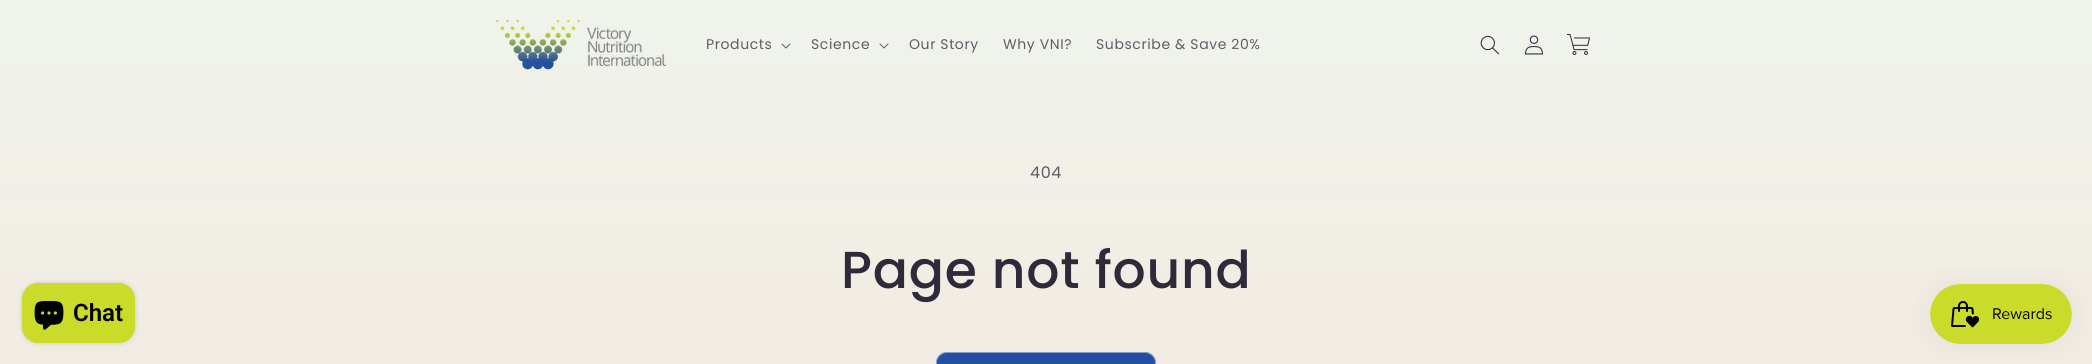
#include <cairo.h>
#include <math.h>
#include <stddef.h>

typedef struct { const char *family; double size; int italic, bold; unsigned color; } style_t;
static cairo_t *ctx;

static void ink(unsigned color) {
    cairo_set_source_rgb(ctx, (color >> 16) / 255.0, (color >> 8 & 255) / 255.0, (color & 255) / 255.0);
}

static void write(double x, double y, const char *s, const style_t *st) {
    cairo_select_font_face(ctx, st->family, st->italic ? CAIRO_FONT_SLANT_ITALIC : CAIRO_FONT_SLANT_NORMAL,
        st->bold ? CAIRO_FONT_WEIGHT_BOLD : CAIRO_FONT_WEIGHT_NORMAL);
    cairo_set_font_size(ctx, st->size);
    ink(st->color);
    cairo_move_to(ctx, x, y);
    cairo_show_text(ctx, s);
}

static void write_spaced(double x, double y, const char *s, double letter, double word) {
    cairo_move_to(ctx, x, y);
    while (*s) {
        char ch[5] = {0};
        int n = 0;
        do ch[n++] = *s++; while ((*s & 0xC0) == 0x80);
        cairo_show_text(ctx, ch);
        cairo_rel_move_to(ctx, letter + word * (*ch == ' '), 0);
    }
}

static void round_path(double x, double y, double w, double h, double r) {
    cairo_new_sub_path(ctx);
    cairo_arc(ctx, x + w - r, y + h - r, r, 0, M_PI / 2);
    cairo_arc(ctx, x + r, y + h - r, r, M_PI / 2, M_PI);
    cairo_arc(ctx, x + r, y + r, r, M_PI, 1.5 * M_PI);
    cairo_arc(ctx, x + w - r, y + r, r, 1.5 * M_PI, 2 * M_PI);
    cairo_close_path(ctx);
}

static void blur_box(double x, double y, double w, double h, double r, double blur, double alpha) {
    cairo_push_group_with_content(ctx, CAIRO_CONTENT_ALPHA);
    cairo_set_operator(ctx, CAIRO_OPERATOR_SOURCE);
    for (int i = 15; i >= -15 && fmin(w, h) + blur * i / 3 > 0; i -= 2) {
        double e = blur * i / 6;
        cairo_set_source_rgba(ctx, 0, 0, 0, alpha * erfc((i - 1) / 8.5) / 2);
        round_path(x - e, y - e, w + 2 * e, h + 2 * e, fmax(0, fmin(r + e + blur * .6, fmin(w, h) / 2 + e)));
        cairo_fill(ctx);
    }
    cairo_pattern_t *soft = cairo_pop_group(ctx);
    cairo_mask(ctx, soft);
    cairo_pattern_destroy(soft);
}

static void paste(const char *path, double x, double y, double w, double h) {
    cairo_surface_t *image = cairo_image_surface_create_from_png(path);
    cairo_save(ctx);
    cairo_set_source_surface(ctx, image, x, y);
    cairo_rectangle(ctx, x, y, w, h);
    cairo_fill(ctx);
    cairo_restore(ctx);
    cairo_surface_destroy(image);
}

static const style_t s1 = {"Roboto SemiBold", 24, 0, 0, 0x000000};

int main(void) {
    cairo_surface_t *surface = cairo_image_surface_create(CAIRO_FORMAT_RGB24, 2092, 364);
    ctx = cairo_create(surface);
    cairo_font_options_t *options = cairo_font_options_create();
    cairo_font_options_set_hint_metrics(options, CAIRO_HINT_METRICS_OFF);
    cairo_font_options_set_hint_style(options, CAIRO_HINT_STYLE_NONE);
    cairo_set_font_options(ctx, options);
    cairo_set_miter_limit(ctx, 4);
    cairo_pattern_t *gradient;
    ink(0xffffff);
    cairo_paint(ctx);
    gradient = cairo_pattern_create_linear(1046, 0, 1046, 364);
    cairo_pattern_add_color_stop_rgba(gradient, 0, 0.941, 0.957, 0.925, 1);
    cairo_pattern_add_color_stop_rgba(gradient, 1, 0.945, 0.922, 0.886, 1);
    cairo_set_source(ctx, gradient);
    cairo_pattern_destroy(gradient);
    cairo_rectangle(ctx, 0, 0, 2092, 364);
    cairo_fill(ctx);
    paste("pic1.png", 496, 20, 170, 50);
    cairo_select_font_face(ctx, "Poppins", CAIRO_FONT_SLANT_NORMAL, CAIRO_FONT_WEIGHT_NORMAL);
    cairo_set_font_size(ctx, 14);
    ink(0x5f5c65);
    write_spaced(706, 49, "Products", 0.6, 0);
    paste("pic2.png", 781, 43, 10, 6);
    write_spaced(811, 49, "Science", 0.6, 0);
    paste("pic2.png", 879, 43, 10, 6);
    write_spaced(909, 49, "Our Story", 0.6, 0);
    write_spaced(1003, 49, "Why VNI?", 0.6, 0);
    write_spaced(1096, 49, "Subscribe & Save 20%", 0.6, 0);
    paste("pic3.png", 1480, 35, 19, 20);
    paste("pic4.png", 1525, 35, 18, 20);
    paste("pic5.png", 1567, 34, 23, 21);
    ink(0x000000);
    blur_box(22, 283, 113, 60, 16, 2.5, 0.15);
    ink(0xcbdb2a);
    round_path(22, 283, 113, 60, 16);
    cairo_fill(ctx);
    paste("pic6.png", 34, 301, 30, 29);
    write(73, 321, "Chat", &s1);
    cairo_select_font_face(ctx, "Poppins", CAIRO_FONT_SLANT_NORMAL, CAIRO_FONT_WEIGHT_NORMAL);
    cairo_set_font_size(ctx, 16);
    ink(0x5f5c65);
    write_spaced(1030, 178, "404", 0.6, 0);
    cairo_select_font_face(ctx, "Poppins Medium", CAIRO_FONT_SLANT_NORMAL, CAIRO_FONT_WEIGHT_NORMAL);
    cairo_set_font_size(ctx, 52);
    ink(0x2e2a39);
    write_spaced(841, 288, "Page not found", 0.75, 0);
    ink(0x244ea2);
    round_path(936.5, 352.5, 219, 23, 10.5);
    cairo_fill_preserve(ctx);
    cairo_set_line_width(ctx, 1);
    cairo_stroke(ctx);
    round_path(936.5, 352.5, 219, 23, 10.5);
    cairo_set_source_rgba(ctx, 0.992, 0.984, 0.969, 0.45);
    cairo_stroke(ctx);
    ink(0x000000);
    blur_box(1930, 284, 142, 60, 30, 12.5, 0.05);
    paste("pic7.png", 1930, 284, 142, 60);
    cairo_surface_write_to_png(surface, "screenshot.png");
    cairo_font_options_destroy(options);
    cairo_destroy(ctx);
    cairo_surface_destroy(surface);
    return 0;
}
